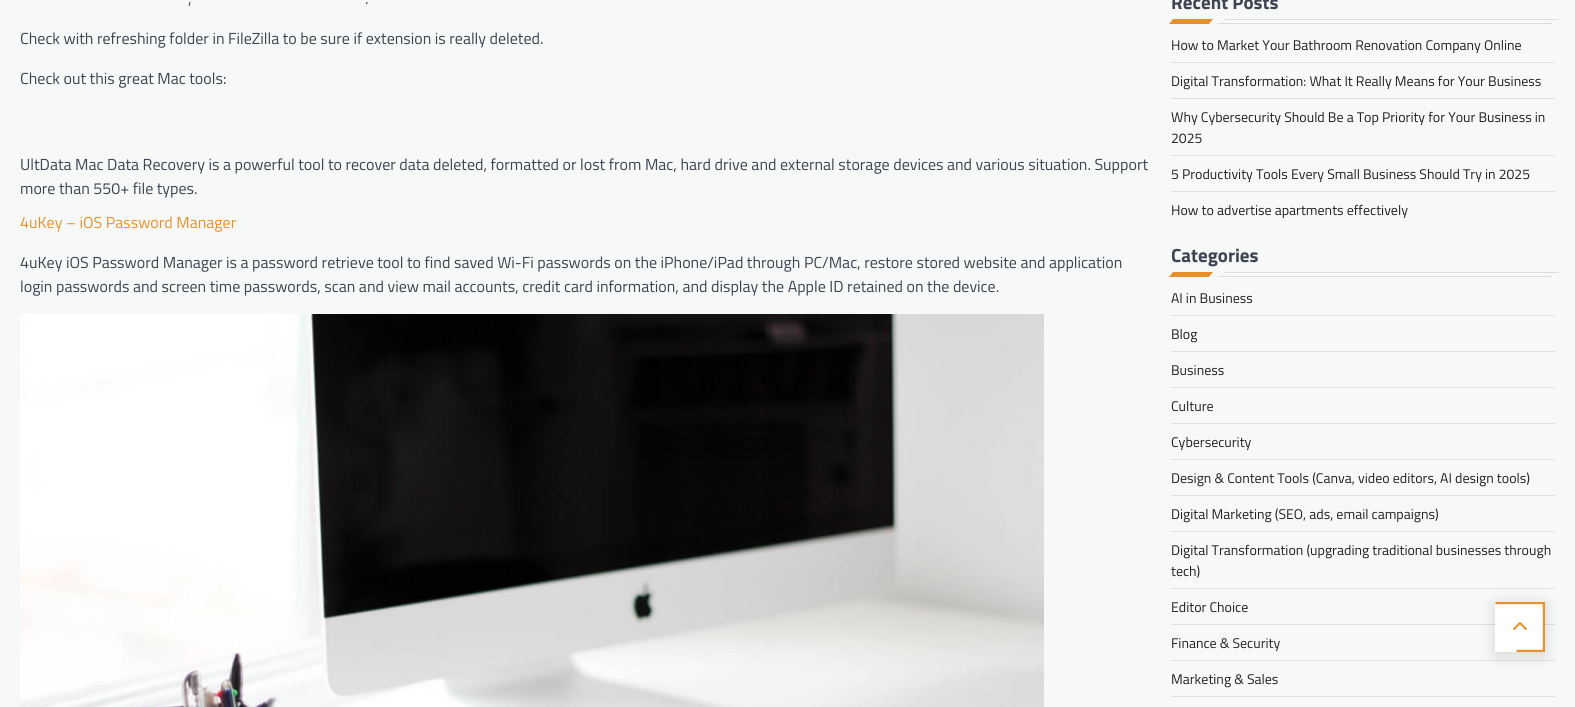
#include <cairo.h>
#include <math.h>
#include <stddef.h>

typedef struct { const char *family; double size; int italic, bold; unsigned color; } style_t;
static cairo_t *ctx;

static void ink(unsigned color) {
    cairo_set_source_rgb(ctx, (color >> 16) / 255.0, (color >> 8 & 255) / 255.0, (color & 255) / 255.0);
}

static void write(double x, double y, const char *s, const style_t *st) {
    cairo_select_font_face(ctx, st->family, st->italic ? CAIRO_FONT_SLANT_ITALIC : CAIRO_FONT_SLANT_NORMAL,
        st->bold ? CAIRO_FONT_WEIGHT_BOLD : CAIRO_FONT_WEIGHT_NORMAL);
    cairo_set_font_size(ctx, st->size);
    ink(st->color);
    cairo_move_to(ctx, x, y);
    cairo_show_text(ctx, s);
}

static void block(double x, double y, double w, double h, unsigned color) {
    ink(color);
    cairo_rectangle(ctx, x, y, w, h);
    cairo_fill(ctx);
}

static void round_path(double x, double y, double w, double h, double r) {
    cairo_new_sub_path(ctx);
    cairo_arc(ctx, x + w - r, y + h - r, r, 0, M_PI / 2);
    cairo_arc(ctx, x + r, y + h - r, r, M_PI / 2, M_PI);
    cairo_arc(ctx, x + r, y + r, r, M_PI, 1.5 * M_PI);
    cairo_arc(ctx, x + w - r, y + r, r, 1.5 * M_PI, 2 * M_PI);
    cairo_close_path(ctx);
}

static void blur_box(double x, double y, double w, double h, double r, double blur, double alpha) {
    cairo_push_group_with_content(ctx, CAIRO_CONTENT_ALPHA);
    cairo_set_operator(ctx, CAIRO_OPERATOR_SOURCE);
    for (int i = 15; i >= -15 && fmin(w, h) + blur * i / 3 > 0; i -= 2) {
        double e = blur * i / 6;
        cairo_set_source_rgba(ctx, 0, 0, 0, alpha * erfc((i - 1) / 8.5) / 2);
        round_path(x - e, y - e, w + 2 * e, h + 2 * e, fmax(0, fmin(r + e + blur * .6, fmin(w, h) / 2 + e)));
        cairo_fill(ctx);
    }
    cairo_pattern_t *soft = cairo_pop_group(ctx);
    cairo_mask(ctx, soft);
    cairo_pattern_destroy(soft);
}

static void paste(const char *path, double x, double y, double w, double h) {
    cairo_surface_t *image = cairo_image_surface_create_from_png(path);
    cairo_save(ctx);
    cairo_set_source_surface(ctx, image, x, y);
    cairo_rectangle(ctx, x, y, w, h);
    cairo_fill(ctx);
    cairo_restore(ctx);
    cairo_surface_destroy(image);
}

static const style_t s1 = {"Titillium Web", 16, 0, 0, 0x3d4452};
static const style_t s2 = {"Titillium Web", 16, 0, 0, 0xea902a};
static const style_t s3 = {"Titillium Web", 19, 0, 1, 0x3d4452};
static const style_t s4 = {"Titillium Web", 14, 0, 0, 0x202124};

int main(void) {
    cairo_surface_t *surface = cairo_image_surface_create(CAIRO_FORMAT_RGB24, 1575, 707);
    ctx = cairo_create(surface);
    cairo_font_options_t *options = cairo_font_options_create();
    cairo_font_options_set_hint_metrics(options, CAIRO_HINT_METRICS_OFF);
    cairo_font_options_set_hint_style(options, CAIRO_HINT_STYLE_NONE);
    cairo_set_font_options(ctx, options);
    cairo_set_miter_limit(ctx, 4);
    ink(0xf7f9f8);
    cairo_paint(ctx);
    write(188, 4, ",", &s1);
    write(365, 4, ".", &s1);
    write(20, 44, "Check with refreshing folder in FileZilla to be sure if extension is really deleted.", &s1);
    write(20, 84, "Check out this great Mac tools:", &s1);
    write(20, 170, "UltData Mac Data Recovery is a powerful tool to recover data deleted, formatted or lost from Mac, hard drive and external storage devices and various situation. Support", &s1);
    write(20, 194, "more than 550+ file types.", &s1);
    write(20, 228, "4uKey – iOS Password Manager", &s2);
    write(20, 268, "4uKey iOS Password Manager is a password retrieve tool to find saved Wi-Fi passwords on the iPhone/iPad through PC/Mac, restore stored website and application", &s1);
    write(20, 292, "login passwords and screen time passwords, scan and view mail accounts, credit card information, and display the Apple ID retained on the device.", &s1);
    paste("pic1.png", 20, 314, 1024, 393);
    write(1171, 9, "Recent Posts", &s3);
    ink(0xea902a);
    cairo_new_path(ctx);
    cairo_move_to(ctx, 1173, 19);
    cairo_line_to(ctx, 1213, 19);
    cairo_line_to(ctx, 1209, 24);
    cairo_line_to(ctx, 1169, 24);
    cairo_close_path(ctx);
    cairo_fill(ctx);
    ink(0xdbdddc);
    cairo_new_path(ctx);
    cairo_move_to(ctx, 1226, 19);
    cairo_line_to(ctx, 1559, 19);
    cairo_line_to(ctx, 1558, 20);
    cairo_line_to(ctx, 1224, 20);
    cairo_close_path(ctx);
    cairo_fill(ctx);
    cairo_new_path(ctx);
    cairo_move_to(ctx, 1219, 23);
    cairo_line_to(ctx, 1552, 23);
    cairo_line_to(ctx, 1551, 24);
    cairo_line_to(ctx, 1217, 24);
    cairo_close_path(ctx);
    cairo_fill(ctx);
    block(1171, 62, 384, 1, 0xdee0df);
    write(1171, 50, "How to Market Your Bathroom Renovation Company Online", &s4);
    block(1171, 98, 384, 1, 0xdee0df);
    write(1171, 86, "Digital Transformation: What It Really Means for Your Business", &s4);
    block(1171, 155, 384, 1, 0xdee0df);
    write(1171, 122, "Why Cybersecurity Should Be a Top Priority for Your Business in", &s4);
    write(1171, 143, "2025", &s4);
    block(1171, 191, 384, 1, 0xdee0df);
    write(1171, 179, "5 Productivity Tools Every Small Business Should Try in 2025", &s4);
    write(1171, 215, "How to advertise apartments effectively", &s4);
    write(1171, 262, "Categories", &s3);
    ink(0xea902a);
    cairo_new_path(ctx);
    cairo_move_to(ctx, 1173, 272);
    cairo_line_to(ctx, 1213, 272);
    cairo_line_to(ctx, 1209, 277);
    cairo_line_to(ctx, 1169, 277);
    cairo_close_path(ctx);
    cairo_fill(ctx);
    ink(0xdbdddc);
    cairo_new_path(ctx);
    cairo_move_to(ctx, 1226, 272);
    cairo_line_to(ctx, 1559, 272);
    cairo_line_to(ctx, 1558, 273);
    cairo_line_to(ctx, 1224, 273);
    cairo_close_path(ctx);
    cairo_fill(ctx);
    cairo_new_path(ctx);
    cairo_move_to(ctx, 1219, 276);
    cairo_line_to(ctx, 1552, 276);
    cairo_line_to(ctx, 1551, 277);
    cairo_line_to(ctx, 1217, 277);
    cairo_close_path(ctx);
    cairo_fill(ctx);
    block(1171, 315, 384, 1, 0xdee0df);
    write(1171, 303, "AI in Business", &s4);
    block(1171, 351, 384, 1, 0xdee0df);
    write(1171, 339, "Blog", &s4);
    block(1171, 387, 384, 1, 0xdee0df);
    write(1171, 375, "Business", &s4);
    block(1171, 423, 384, 1, 0xdee0df);
    write(1171, 411, "Culture", &s4);
    block(1171, 459, 384, 1, 0xdee0df);
    write(1171, 447, "Cybersecurity", &s4);
    block(1171, 495, 384, 1, 0xdee0df);
    write(1171, 483, "Design & Content Tools (Canva, video editors, AI design tools)", &s4);
    block(1171, 531, 384, 1, 0xdee0df);
    write(1171, 519, "Digital Marketing (SEO, ads, email campaigns)", &s4);
    block(1171, 588, 384, 1, 0xdee0df);
    write(1171, 555, "Digital Transformation (upgrading traditional businesses through", &s4);
    write(1171, 576, "tech)", &s4);
    block(1171, 624, 384, 1, 0xdee0df);
    write(1171, 612, "Editor Choice", &s4);
    block(1171, 660, 384, 1, 0xdee0df);
    write(1171, 648, "Finance & Security", &s4);
    block(1171, 696, 384, 1, 0xdee0df);
    write(1171, 684, "Marketing & Sales", &s4);
    ink(0x000000);
    blur_box(1495, 605, 50, 50, 0, 8, 0.15);
    block(1495, 602, 48, 50, 0xffffff);
    paste("pic2.png", 1513, 622, 14, 8);
    cairo_save(ctx);
    cairo_rectangle(ctx, 1495, 602, 50, 50);
    cairo_clip(ctx);
    cairo_new_path(ctx);
    cairo_move_to(ctx, 1495.5, 602.5);
    cairo_line_to(ctx, 1544.5, 602.5);
    cairo_line_to(ctx, 1544.5, 651.5);
    cairo_line_to(ctx, 1516.5, 651.5);
    ink(0xea902a);
    cairo_set_line_width(ctx, 3.4);
    cairo_stroke(ctx);
    cairo_restore(ctx);
    cairo_surface_write_to_png(surface, "screenshot.png");
    cairo_font_options_destroy(options);
    cairo_destroy(ctx);
    cairo_surface_destroy(surface);
    return 0;
}
